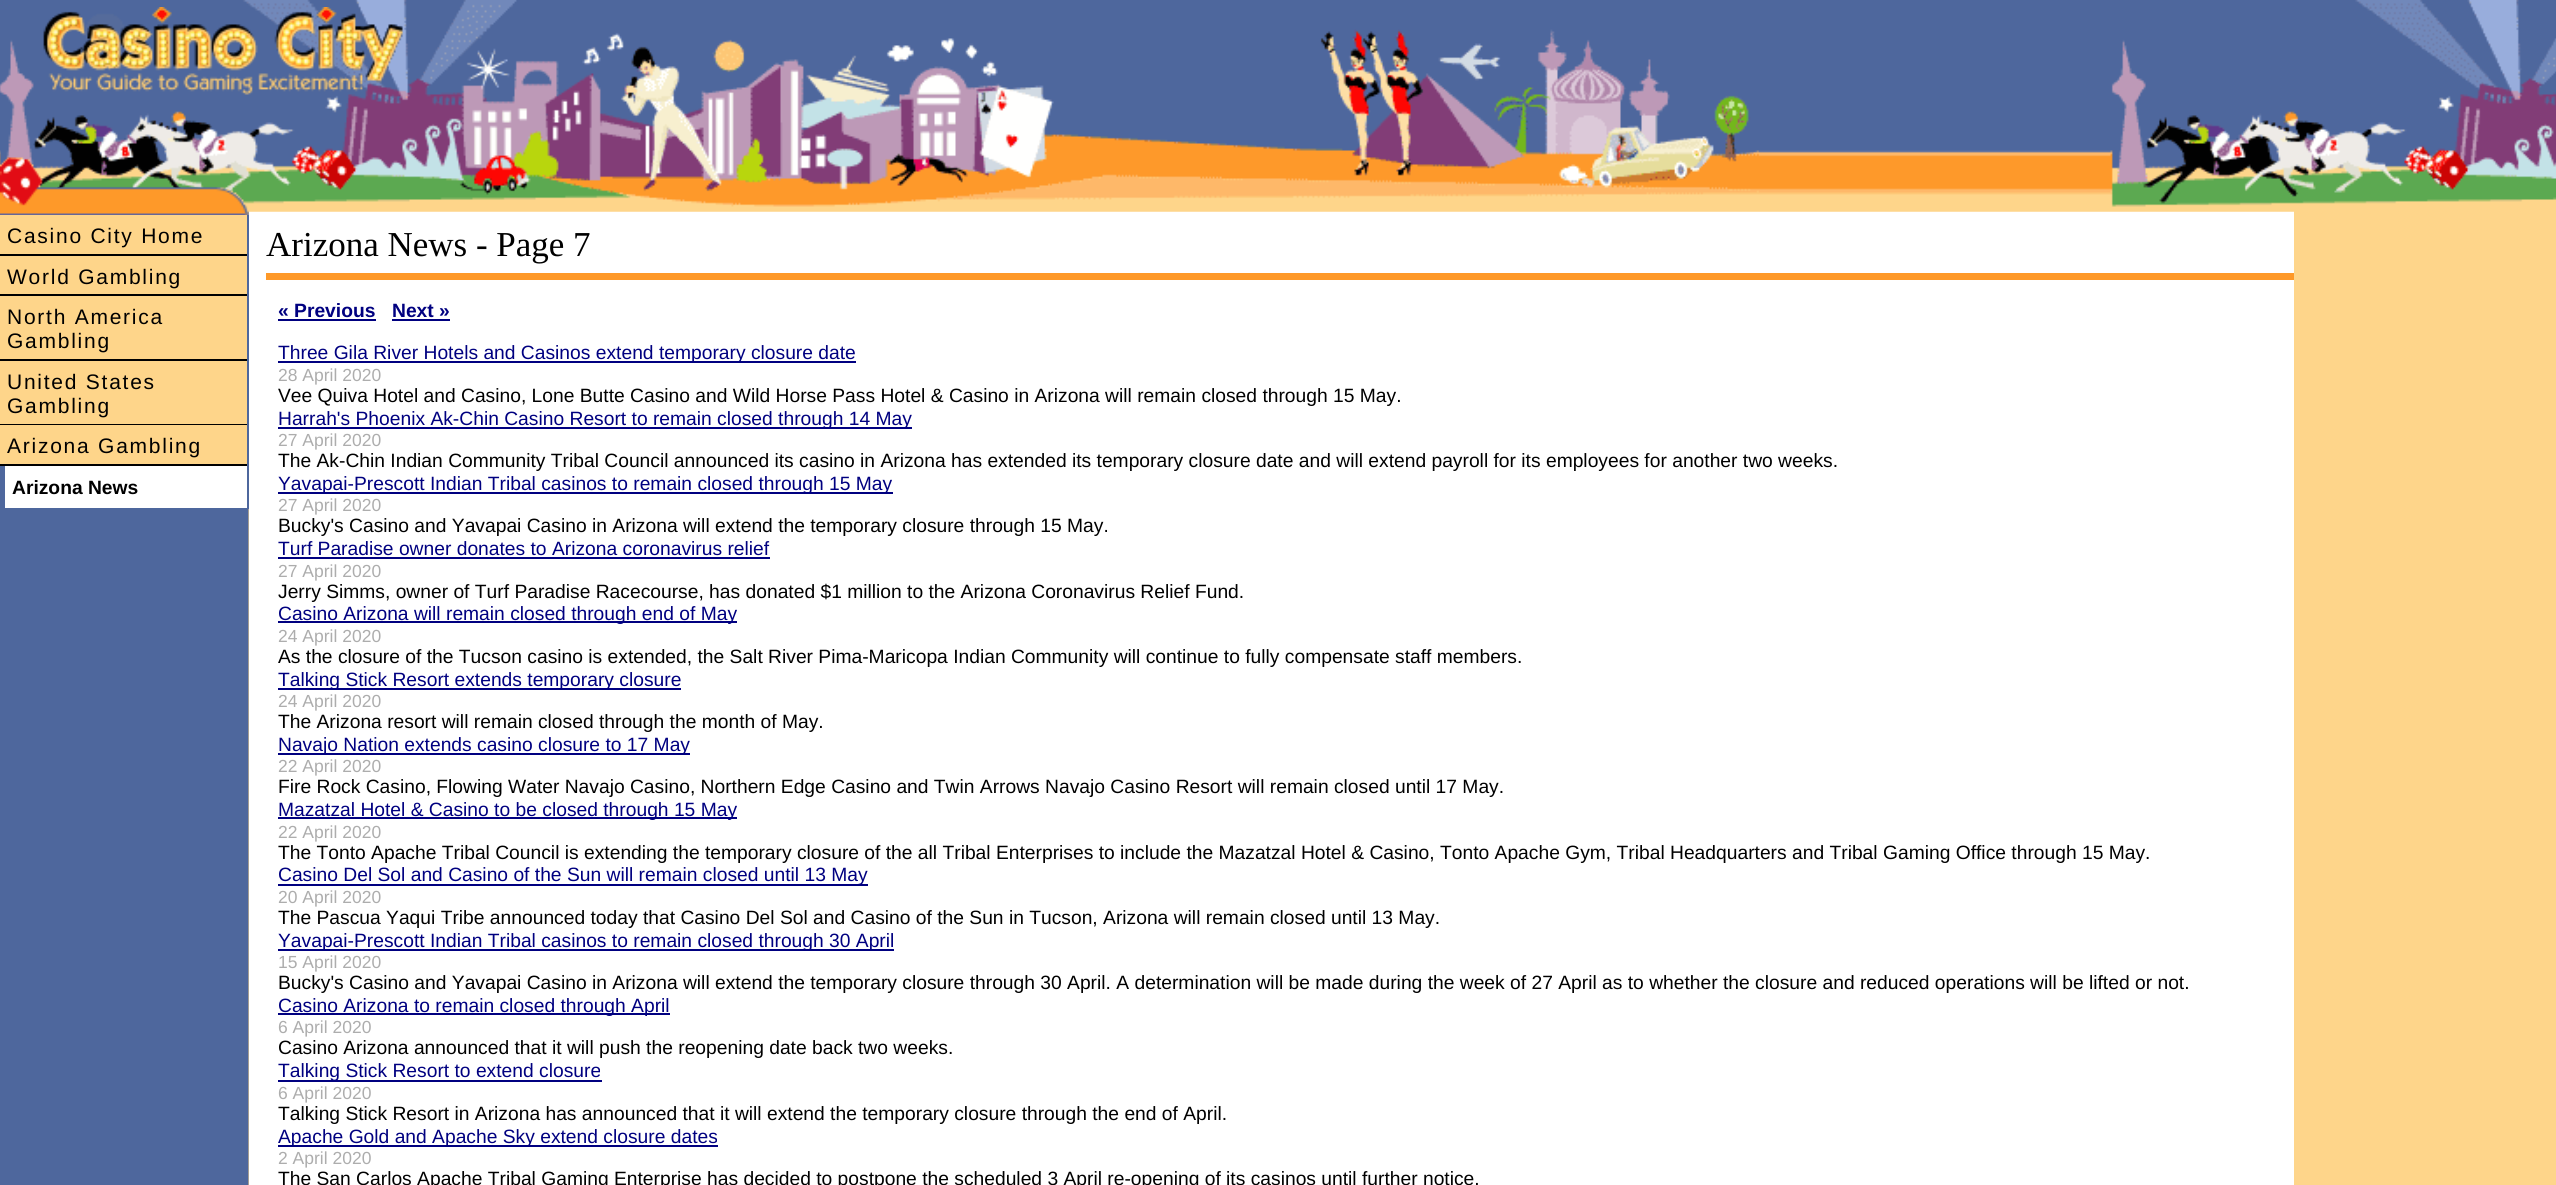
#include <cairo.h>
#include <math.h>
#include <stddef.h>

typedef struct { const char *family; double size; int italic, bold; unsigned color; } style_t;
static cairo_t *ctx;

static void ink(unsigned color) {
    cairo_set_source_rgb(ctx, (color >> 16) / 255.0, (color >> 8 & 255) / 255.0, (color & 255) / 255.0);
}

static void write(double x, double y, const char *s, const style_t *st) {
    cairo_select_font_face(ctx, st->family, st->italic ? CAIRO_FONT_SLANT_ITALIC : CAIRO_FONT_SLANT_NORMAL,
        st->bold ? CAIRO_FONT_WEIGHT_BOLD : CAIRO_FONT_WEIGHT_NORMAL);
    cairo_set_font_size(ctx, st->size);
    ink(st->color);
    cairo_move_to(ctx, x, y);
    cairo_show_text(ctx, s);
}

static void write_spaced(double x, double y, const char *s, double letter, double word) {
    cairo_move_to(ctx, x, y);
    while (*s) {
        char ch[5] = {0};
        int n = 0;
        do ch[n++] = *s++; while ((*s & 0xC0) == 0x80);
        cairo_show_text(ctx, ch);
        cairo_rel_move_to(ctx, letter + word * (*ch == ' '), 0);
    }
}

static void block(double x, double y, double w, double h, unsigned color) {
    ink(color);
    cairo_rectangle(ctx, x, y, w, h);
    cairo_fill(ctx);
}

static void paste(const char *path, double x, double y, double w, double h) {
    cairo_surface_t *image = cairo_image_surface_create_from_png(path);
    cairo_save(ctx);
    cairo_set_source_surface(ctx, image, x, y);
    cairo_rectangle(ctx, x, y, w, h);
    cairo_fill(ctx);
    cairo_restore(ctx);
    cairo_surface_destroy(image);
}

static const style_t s1 = {"Liberation Sans", 19.25, 0, 1, 0x000000};
static const style_t s2 = {"Liberation Serif", 35, 0, 0, 0x000000};
static const style_t s3 = {"Liberation Sans", 19.25, 0, 1, 0x000080};
static const style_t s4 = {"Liberation Sans", 19.25, 0, 0, 0x000080};
static const style_t s5 = {"Liberation Sans", 17.5, 0, 0, 0xadadad};
static const style_t s6 = {"Liberation Sans", 19.25, 0, 0, 0x000000};

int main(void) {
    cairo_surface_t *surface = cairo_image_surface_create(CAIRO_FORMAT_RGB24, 2556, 1185);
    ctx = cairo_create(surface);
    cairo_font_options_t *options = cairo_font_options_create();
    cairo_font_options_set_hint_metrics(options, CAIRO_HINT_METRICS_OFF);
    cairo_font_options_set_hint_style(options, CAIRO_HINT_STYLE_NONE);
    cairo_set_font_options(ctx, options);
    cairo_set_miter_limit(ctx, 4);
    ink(0xffffff);
    cairo_paint(ctx);
    paste("pic1.png", 0, 211, 2556, 974);
    block(249, 211, 2045, 974, 0xffffff);
    paste("pic2.png", 0, 0, 2556, 212);
    paste("pic3.png", 43, 7, 360, 88);
    paste("pic4.png", 0, 157, 249, 58);
    block(248, 215, 1, 294, 0x4e679d);
    block(0, 215, 247, 39, 0xfed58a);
    block(0, 254, 247, 2, 0x000000);
    cairo_select_font_face(ctx, "Liberation Sans", CAIRO_FONT_SLANT_NORMAL, CAIRO_FONT_WEIGHT_NORMAL);
    cairo_set_font_size(ctx, 21);
    write_spaced(7, 243, "Casino City Home", 1.75, 0);
    block(0, 256, 247, 38, 0xfed58a);
    block(0, 294, 247, 2, 0x000000);
    write_spaced(7, 284, "World Gambling", 1.75, 0);
    block(0, 296, 247, 63, 0xfed58a);
    block(0, 359, 247, 2, 0x000000);
    write_spaced(7, 324, "North America", 1.75, 0);
    write_spaced(7, 348, "Gambling", 1.75, 0);
    block(0, 361, 247, 63, 0xfed58a);
    block(0, 424, 247, 1, 0x000000);
    write_spaced(7, 389, "United States", 1.75, 0);
    write_spaced(7, 413, "Gambling", 1.75, 0);
    block(0, 425, 247, 39, 0xfed58a);
    block(0, 464, 247, 2, 0x000000);
    write_spaced(7, 453, "Arizona Gambling", 1.75, 0);
    block(5, 466, 242, 42, 0xffffff);
    write(12, 494, "Arizona News", &s1);
    write(266, 256, "Arizona News - Page 7", &s2);
    block(266, 273, 2028, 7, 0xfe9929);
    write(278, 317, "« Previous", &s3);
    block(278, 319, 98, 2, 0x000080);
    write(392, 317, "Next »", &s3);
    block(392, 319, 58, 2, 0x000080);
    block(278, 361, 578, 2, 0x000080);
    write(278, 359, "Three Gila River Hotels and Casinos extend temporary closure date", &s4);
    write(278, 381, "28 April 2020", &s5);
    write(278, 402, "Vee Quiva Hotel and Casino, Lone Butte Casino and Wild Horse Pass Hotel & Casino in Arizona will remain closed through 15 May.", &s6);
    block(278, 427, 634, 2, 0x000080);
    write(278, 425, "Harrah's Phoenix Ak-Chin Casino Resort to remain closed through 14 May", &s4);
    write(278, 446, "27 April 2020", &s5);
    write(278, 467, "The Ak-Chin Indian Community Tribal Council announced its casino in Arizona has extended its temporary closure date and will extend payroll for its employees for another two weeks.", &s6);
    block(278, 492, 615, 2, 0x000080);
    write(278, 490, "Yavapai-Prescott Indian Tribal casinos to remain closed through 15 May", &s4);
    write(278, 511, "27 April 2020", &s5);
    write(278, 532, "Bucky's Casino and Yavapai Casino in Arizona will extend the temporary closure through 15 May.", &s6);
    write(278, 555, "Turf Paradise owner donates to Arizona coronavirus relief", &s4);
    block(278, 557, 492, 2, 0x000080);
    write(278, 577, "27 April 2020", &s5);
    write(278, 598, "Jerry Simms, owner of Turf Paradise Racecourse, has donated $1 million to the Arizona Coronavirus Relief Fund.", &s6);
    block(278, 621, 459, 2, 0x000080);
    write(278, 620, "Casino Arizona will remain closed through end of May", &s4);
    write(278, 642, "24 April 2020", &s5);
    write(278, 663, "As the closure of the Tucson casino is extended, the Salt River Pima-Maricopa Indian Community will continue to fully compensate staff members.", &s6);
    block(278, 688, 403, 2, 0x000080);
    write(278, 686, "Talking Stick Resort extends temporary closure", &s4);
    write(278, 707, "24 April 2020", &s5);
    write(278, 728, "The Arizona resort will remain closed through the month of May.", &s6);
    block(278, 753, 412, 2, 0x000080);
    write(278, 751, "Navajo Nation extends casino closure to 17 May", &s4);
    write(278, 772, "22 April 2020", &s5);
    write(278, 793, "Fire Rock Casino, Flowing Water Navajo Casino, Northern Edge Casino and Twin Arrows Navajo Casino Resort will remain closed until 17 May.", &s6);
    block(278, 817, 459, 2, 0x000080);
    write(278, 816, "Mazatzal Hotel & Casino to be closed through 15 May", &s4);
    write(278, 838, "22 April 2020", &s5);
    write(278, 859, "The Tonto Apache Tribal Council is extending the temporary closure of the all Tribal Enterprises to include the Mazatzal Hotel & Casino, Tonto Apache Gym, Tribal Headquarters and Tribal Gaming Office through 15 May.", &s6);
    block(278, 884, 590, 2, 0x000080);
    write(278, 881, "Casino Del Sol and Casino of the Sun will remain closed until 13 May", &s4);
    write(278, 903, "20 April 2020", &s5);
    write(278, 924, "The Pascua Yaqui Tribe announced today that Casino Del Sol and Casino of the Sun in Tucson, Arizona will remain closed until 13 May.", &s6);
    block(278, 949, 616, 2, 0x000080);
    write(278, 947, "Yavapai-Prescott Indian Tribal casinos to remain closed through 30 April", &s4);
    write(278, 968, "15 April 2020", &s5);
    write(278, 989, "Bucky's Casino and Yavapai Casino in Arizona will extend the temporary closure through 30 April. A determination will be made during the week of 27 April as to whether the closure and reduced operations will be lifted or not.", &s6);
    block(278, 1013, 392, 2, 0x000080);
    write(278, 1012, "Casino Arizona to remain closed through April", &s4);
    write(278, 1033, "6 April 2020", &s5);
    write(278, 1054, "Casino Arizona announced that it will push the reopening date back two weeks.", &s6);
    block(278, 1080, 324, 2, 0x000080);
    write(278, 1077, "Talking Stick Resort to extend closure", &s4);
    write(278, 1099, "6 April 2020", &s5);
    write(278, 1120, "Talking Stick Resort in Arizona has announced that it will extend the temporary closure through the end of April.", &s6);
    block(278, 1145, 440, 2, 0x000080);
    write(278, 1143, "Apache Gold and Apache Sky extend closure dates", &s4);
    write(278, 1164, "2 April 2020", &s5);
    write(278, 1185, "The San Carlos Apache Tribal Gaming Enterprise has decided to postpone the scheduled 3 April re-opening of its casinos until further notice.", &s6);
    cairo_surface_write_to_png(surface, "screenshot.png");
    cairo_font_options_destroy(options);
    cairo_destroy(ctx);
    cairo_surface_destroy(surface);
    return 0;
}
